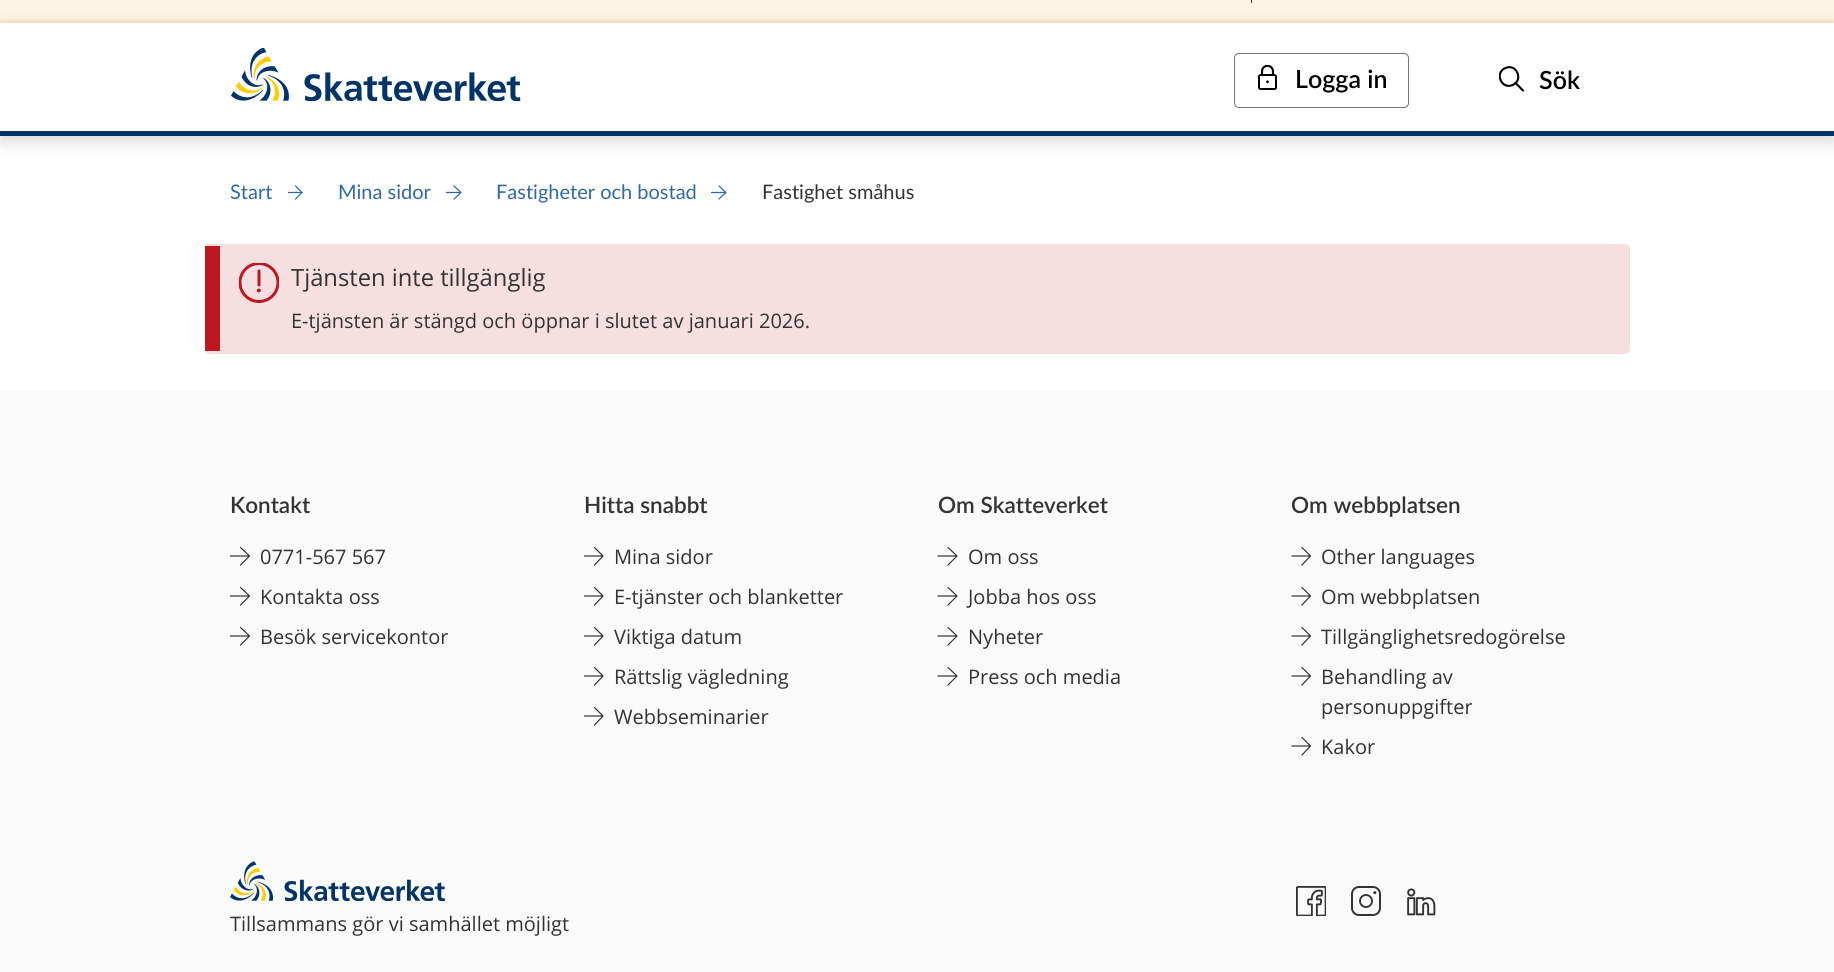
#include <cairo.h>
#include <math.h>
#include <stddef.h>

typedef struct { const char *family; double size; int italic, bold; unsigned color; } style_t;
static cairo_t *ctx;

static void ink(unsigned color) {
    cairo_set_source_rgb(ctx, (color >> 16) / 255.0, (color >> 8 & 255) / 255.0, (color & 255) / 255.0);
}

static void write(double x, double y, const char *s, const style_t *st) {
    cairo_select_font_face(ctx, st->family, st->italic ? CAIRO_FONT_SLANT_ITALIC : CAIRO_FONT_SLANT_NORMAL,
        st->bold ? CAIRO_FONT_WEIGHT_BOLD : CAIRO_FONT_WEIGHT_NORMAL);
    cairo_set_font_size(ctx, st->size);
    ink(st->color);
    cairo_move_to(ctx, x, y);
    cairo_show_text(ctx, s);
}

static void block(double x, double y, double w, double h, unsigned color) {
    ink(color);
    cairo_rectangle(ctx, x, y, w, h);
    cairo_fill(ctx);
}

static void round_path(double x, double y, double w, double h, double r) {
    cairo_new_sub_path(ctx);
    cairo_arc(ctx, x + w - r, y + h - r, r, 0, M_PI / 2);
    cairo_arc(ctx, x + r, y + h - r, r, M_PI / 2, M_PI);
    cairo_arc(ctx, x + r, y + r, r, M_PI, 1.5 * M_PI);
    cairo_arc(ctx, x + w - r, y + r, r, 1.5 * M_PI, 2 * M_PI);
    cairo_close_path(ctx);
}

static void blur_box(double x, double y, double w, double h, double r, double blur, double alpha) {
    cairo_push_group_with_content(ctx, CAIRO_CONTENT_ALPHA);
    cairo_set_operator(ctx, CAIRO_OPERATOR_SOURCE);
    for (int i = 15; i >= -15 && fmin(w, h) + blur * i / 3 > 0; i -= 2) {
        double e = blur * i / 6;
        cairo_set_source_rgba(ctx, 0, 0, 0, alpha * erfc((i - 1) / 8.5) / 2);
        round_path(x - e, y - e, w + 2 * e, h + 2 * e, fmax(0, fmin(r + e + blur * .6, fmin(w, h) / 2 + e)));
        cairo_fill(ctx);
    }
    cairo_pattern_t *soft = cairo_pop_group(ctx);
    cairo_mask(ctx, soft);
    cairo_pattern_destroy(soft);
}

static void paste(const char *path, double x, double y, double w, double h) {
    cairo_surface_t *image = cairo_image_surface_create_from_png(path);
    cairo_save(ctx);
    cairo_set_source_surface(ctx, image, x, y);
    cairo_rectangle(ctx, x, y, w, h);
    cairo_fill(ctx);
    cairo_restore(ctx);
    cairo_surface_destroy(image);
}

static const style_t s1 = {"Lato SemiBold", 25, 0, 0, 0x000000};
static const style_t s2 = {"Lato", 20, 0, 0, 0x3069a1};
static const style_t s3 = {"Lato", 20, 0, 0, 0x333333};
static const style_t s4 = {"Open Sans", 23.75, 0, 0, 0x333333};
static const style_t s5 = {"Open Sans", 20, 0, 0, 0x333333};
static const style_t s6 = {"Lato SemiBold", 22.5, 0, 0, 0x333333};

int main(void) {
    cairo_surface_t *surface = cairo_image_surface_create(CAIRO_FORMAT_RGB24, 1834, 972);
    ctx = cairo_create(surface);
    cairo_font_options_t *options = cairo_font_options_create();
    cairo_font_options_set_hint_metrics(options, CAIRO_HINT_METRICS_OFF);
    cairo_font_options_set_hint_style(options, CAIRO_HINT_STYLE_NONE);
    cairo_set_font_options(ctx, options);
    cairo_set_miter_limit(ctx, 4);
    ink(0xffffff);
    cairo_paint(ctx);
    block(0, 0, 1834, 20, 0xfef4e5);
    block(0, 20, 1834, 3, 0xfde9cc);
    cairo_save(ctx);
    cairo_set_fill_rule(ctx, CAIRO_FILL_RULE_EVEN_ODD);
    cairo_new_path(ctx);
    cairo_move_to(ctx, 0, 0);
    cairo_line_to(ctx, 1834, 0);
    cairo_line_to(ctx, 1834, 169);
    cairo_line_to(ctx, 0, 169);
    cairo_close_path(ctx);
    cairo_move_to(ctx, 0, 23);
    cairo_line_to(ctx, 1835, 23);
    cairo_line_to(ctx, 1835, 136);
    cairo_line_to(ctx, 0, 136);
    cairo_close_path(ctx);
    cairo_clip(ctx);
    ink(0x121212);
    blur_box(0, 28, 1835, 113, 0, 9, 0.17);
    cairo_restore(ctx);
    block(1251, 0, 1, 3, 0x333333);
    block(0, 131, 1834, 5, 0x003366);
    paste("pic1.png", 231, 48, 290, 53);
    round_path(1234.5, 53.5, 174, 54, 4.5);
    ink(0x767676);
    cairo_set_line_width(ctx, 1);
    cairo_stroke(ctx);
    paste("pic2.png", 1258, 65, 19, 25);
    write(1295, 88, "Logga in", &s1);
    cairo_save(ctx);
    cairo_rectangle(ctx, 1499, 66, 25, 25);
    cairo_clip(ctx);
    cairo_new_path(ctx);
    cairo_move_to(ctx, 1505.5, 68);
    cairo_curve_to(ctx, 1516.5, 63, 1524, 80.5, 1512.5, 85);
    cairo_curve_to(ctx, 1501.5, 90, 1494, 72.5, 1505.5, 68);
    cairo_close_path(ctx);
    cairo_set_line_width(ctx, 2.1);
    cairo_set_line_cap(ctx, CAIRO_LINE_CAP_ROUND);
    cairo_set_line_join(ctx, CAIRO_LINE_JOIN_ROUND);
    cairo_stroke(ctx);
    cairo_restore(ctx);
    cairo_new_path(ctx);
    cairo_move_to(ctx, 1515.5, 83);
    cairo_line_to(ctx, 1523, 90.5);
    cairo_set_line_width(ctx, 2.1);
    cairo_set_line_cap(ctx, CAIRO_LINE_CAP_ROUND);
    cairo_set_line_join(ctx, CAIRO_LINE_JOIN_ROUND);
    cairo_stroke(ctx);
    write(1539, 89, "Sök", &s1);
    write(230, 199, "Start", &s2);
    paste("pic3.png", 288, 185, 15, 15);
    write(338, 199, "Mina sidor", &s2);
    cairo_new_path(ctx);
    cairo_move_to(ctx, 446.5, 192.5);
    cairo_line_to(ctx, 461, 192.5);
    cairo_move_to(ctx, 454, 199);
    cairo_line_to(ctx, 461, 192.5);
    cairo_line_to(ctx, 454, 186);
    cairo_set_line_width(ctx, 1.2);
    cairo_stroke(ctx);
    write(496, 199, "Fastigheter och bostad", &s2);
    cairo_new_path(ctx);
    cairo_move_to(ctx, 711.5, 192.5);
    cairo_line_to(ctx, 726, 192.5);
    cairo_move_to(ctx, 719, 199);
    cairo_line_to(ctx, 726, 192.5);
    cairo_line_to(ctx, 719, 186);
    cairo_stroke(ctx);
    write(762, 199, "Fastighet småhus", &s3);
    ink(0xf6dfe1);
    round_path(205, 244, 1425, 110, 5);
    cairo_fill(ctx);
    block(205, 246, 15, 105, 0xbf1722);
    cairo_new_path(ctx);
    cairo_move_to(ctx, 259, 290);
    cairo_curve_to(ctx, 258, 290, 258, 291, 259, 291);
    cairo_curve_to(ctx, 259.5, 291, 259.5, 290, 259, 290);
    cairo_set_line_width(ctx, 3);
    cairo_stroke(ctx);
    cairo_new_path(ctx);
    cairo_move_to(ctx, 259, 285);
    cairo_line_to(ctx, 259, 271);
    cairo_set_line_join(ctx, CAIRO_LINE_JOIN_MITER);
    cairo_stroke(ctx);
    cairo_save(ctx);
    cairo_rectangle(ctx, 239, 263, 40, 40);
    cairo_clip(ctx);
    cairo_arc(ctx, 259, 282.5, 19, 0, 2 * M_PI);
    cairo_set_line_cap(ctx, CAIRO_LINE_CAP_BUTT);
    cairo_stroke(ctx);
    cairo_restore(ctx);
    write(291, 286, "Tjänsten inte tillgänglig", &s4);
    write(291, 328, "E-tjänsten är stängd och öppnar i slutet av januari 2026.", &s5);
    block(0, 391, 1834, 581, 0xfafafa);
    write(230, 513, "Kontakt", &s6);
    cairo_new_path(ctx);
    cairo_move_to(ctx, 230.5, 556);
    cairo_line_to(ctx, 249.5, 556);
    cairo_move_to(ctx, 240.5, 565);
    cairo_line_to(ctx, 249.5, 556);
    cairo_line_to(ctx, 240.5, 547.5);
    cairo_set_line_width(ctx, 1.2);
    cairo_set_line_join(ctx, CAIRO_LINE_JOIN_ROUND);
    cairo_stroke(ctx);
    write(260, 564, "0771-567 567", &s5);
    cairo_new_path(ctx);
    cairo_move_to(ctx, 230.5, 596);
    cairo_line_to(ctx, 249.5, 596);
    cairo_move_to(ctx, 240.5, 605);
    cairo_line_to(ctx, 249.5, 596);
    cairo_line_to(ctx, 240.5, 587.5);
    cairo_stroke(ctx);
    write(260, 604, "Kontakta oss", &s5);
    cairo_new_path(ctx);
    cairo_move_to(ctx, 230.5, 636);
    cairo_line_to(ctx, 249.5, 636);
    cairo_move_to(ctx, 240.5, 645);
    cairo_line_to(ctx, 249.5, 636);
    cairo_line_to(ctx, 240.5, 627.5);
    cairo_stroke(ctx);
    write(260, 644, "Besök servicekontor", &s5);
    write(584, 513, "Hitta snabbt", &s6);
    cairo_new_path(ctx);
    cairo_move_to(ctx, 584.5, 556);
    cairo_line_to(ctx, 603, 556);
    cairo_move_to(ctx, 594.5, 565);
    cairo_line_to(ctx, 603, 556);
    cairo_line_to(ctx, 594.5, 547.5);
    cairo_stroke(ctx);
    write(614, 564, "Mina sidor", &s5);
    cairo_new_path(ctx);
    cairo_move_to(ctx, 584.5, 596);
    cairo_line_to(ctx, 603, 596);
    cairo_move_to(ctx, 594.5, 605);
    cairo_line_to(ctx, 603, 596);
    cairo_line_to(ctx, 594.5, 587.5);
    cairo_stroke(ctx);
    write(614, 604, "E-tjänster och blanketter", &s5);
    cairo_new_path(ctx);
    cairo_move_to(ctx, 584.5, 636);
    cairo_line_to(ctx, 603, 636);
    cairo_move_to(ctx, 594.5, 645);
    cairo_line_to(ctx, 603, 636);
    cairo_line_to(ctx, 594.5, 627.5);
    cairo_stroke(ctx);
    write(614, 644, "Viktiga datum", &s5);
    cairo_new_path(ctx);
    cairo_move_to(ctx, 584.5, 676);
    cairo_line_to(ctx, 603, 676);
    cairo_move_to(ctx, 594.5, 685);
    cairo_line_to(ctx, 603, 676);
    cairo_line_to(ctx, 594.5, 667.5);
    cairo_stroke(ctx);
    write(614, 684, "Rättslig vägledning", &s5);
    cairo_new_path(ctx);
    cairo_move_to(ctx, 584.5, 716);
    cairo_line_to(ctx, 603, 716);
    cairo_move_to(ctx, 594.5, 725);
    cairo_line_to(ctx, 603, 716);
    cairo_line_to(ctx, 594.5, 707.5);
    cairo_stroke(ctx);
    write(614, 724, "Webbseminarier", &s5);
    write(938, 513, "Om Skatteverket", &s6);
    cairo_new_path(ctx);
    cairo_move_to(ctx, 938, 556);
    cairo_line_to(ctx, 957, 556);
    cairo_move_to(ctx, 948, 565);
    cairo_line_to(ctx, 957, 556);
    cairo_line_to(ctx, 948, 547.5);
    cairo_stroke(ctx);
    write(968, 564, "Om oss", &s5);
    cairo_new_path(ctx);
    cairo_move_to(ctx, 938, 596);
    cairo_line_to(ctx, 957, 596);
    cairo_move_to(ctx, 948, 605);
    cairo_line_to(ctx, 957, 596);
    cairo_line_to(ctx, 948, 587.5);
    cairo_stroke(ctx);
    write(968, 604, "Jobba hos oss", &s5);
    cairo_new_path(ctx);
    cairo_move_to(ctx, 938, 636);
    cairo_line_to(ctx, 957, 636);
    cairo_move_to(ctx, 948, 645);
    cairo_line_to(ctx, 957, 636);
    cairo_line_to(ctx, 948, 627.5);
    cairo_stroke(ctx);
    write(968, 644, "Nyheter", &s5);
    cairo_new_path(ctx);
    cairo_move_to(ctx, 938, 676);
    cairo_line_to(ctx, 957, 676);
    cairo_move_to(ctx, 948, 685);
    cairo_line_to(ctx, 957, 676);
    cairo_line_to(ctx, 948, 667.5);
    cairo_stroke(ctx);
    write(968, 684, "Press och media", &s5);
    write(1291, 513, "Om webbplatsen", &s6);
    cairo_new_path(ctx);
    cairo_move_to(ctx, 1292, 556);
    cairo_line_to(ctx, 1310.5, 556);
    cairo_move_to(ctx, 1302, 565);
    cairo_line_to(ctx, 1310.5, 556);
    cairo_line_to(ctx, 1302, 547.5);
    cairo_stroke(ctx);
    write(1321, 564, "Other languages", &s5);
    cairo_new_path(ctx);
    cairo_move_to(ctx, 1292, 596);
    cairo_line_to(ctx, 1310.5, 596);
    cairo_move_to(ctx, 1302, 605);
    cairo_line_to(ctx, 1310.5, 596);
    cairo_line_to(ctx, 1302, 587.5);
    cairo_stroke(ctx);
    write(1321, 604, "Om webbplatsen", &s5);
    cairo_new_path(ctx);
    cairo_move_to(ctx, 1292, 636);
    cairo_line_to(ctx, 1310.5, 636);
    cairo_move_to(ctx, 1302, 645);
    cairo_line_to(ctx, 1310.5, 636);
    cairo_line_to(ctx, 1302, 627.5);
    cairo_stroke(ctx);
    write(1321, 644, "Tillgänglighetsredogörelse", &s5);
    cairo_new_path(ctx);
    cairo_move_to(ctx, 1292, 676);
    cairo_line_to(ctx, 1310.5, 676);
    cairo_move_to(ctx, 1302, 685);
    cairo_line_to(ctx, 1310.5, 676);
    cairo_line_to(ctx, 1302, 667.5);
    cairo_stroke(ctx);
    write(1321, 684, "Behandling av", &s5);
    write(1321, 714, "personuppgifter", &s5);
    cairo_new_path(ctx);
    cairo_move_to(ctx, 1292, 746);
    cairo_line_to(ctx, 1310.5, 746);
    cairo_move_to(ctx, 1302, 755);
    cairo_line_to(ctx, 1310.5, 746);
    cairo_line_to(ctx, 1302, 737.5);
    cairo_stroke(ctx);
    write(1321, 754, "Kakor", &s5);
    paste("pic4.png", 1296, 886, 30, 30);
    paste("pic5.png", 1351, 886, 30, 30);
    paste("pic6.png", 1407, 888, 29, 28);
    paste("pic7.png", 230, 861, 215, 40);
    write(230, 931, "Tillsammans gör vi samhället möjligt", &s5);
    cairo_surface_write_to_png(surface, "screenshot.png");
    cairo_font_options_destroy(options);
    cairo_destroy(ctx);
    cairo_surface_destroy(surface);
    return 0;
}
